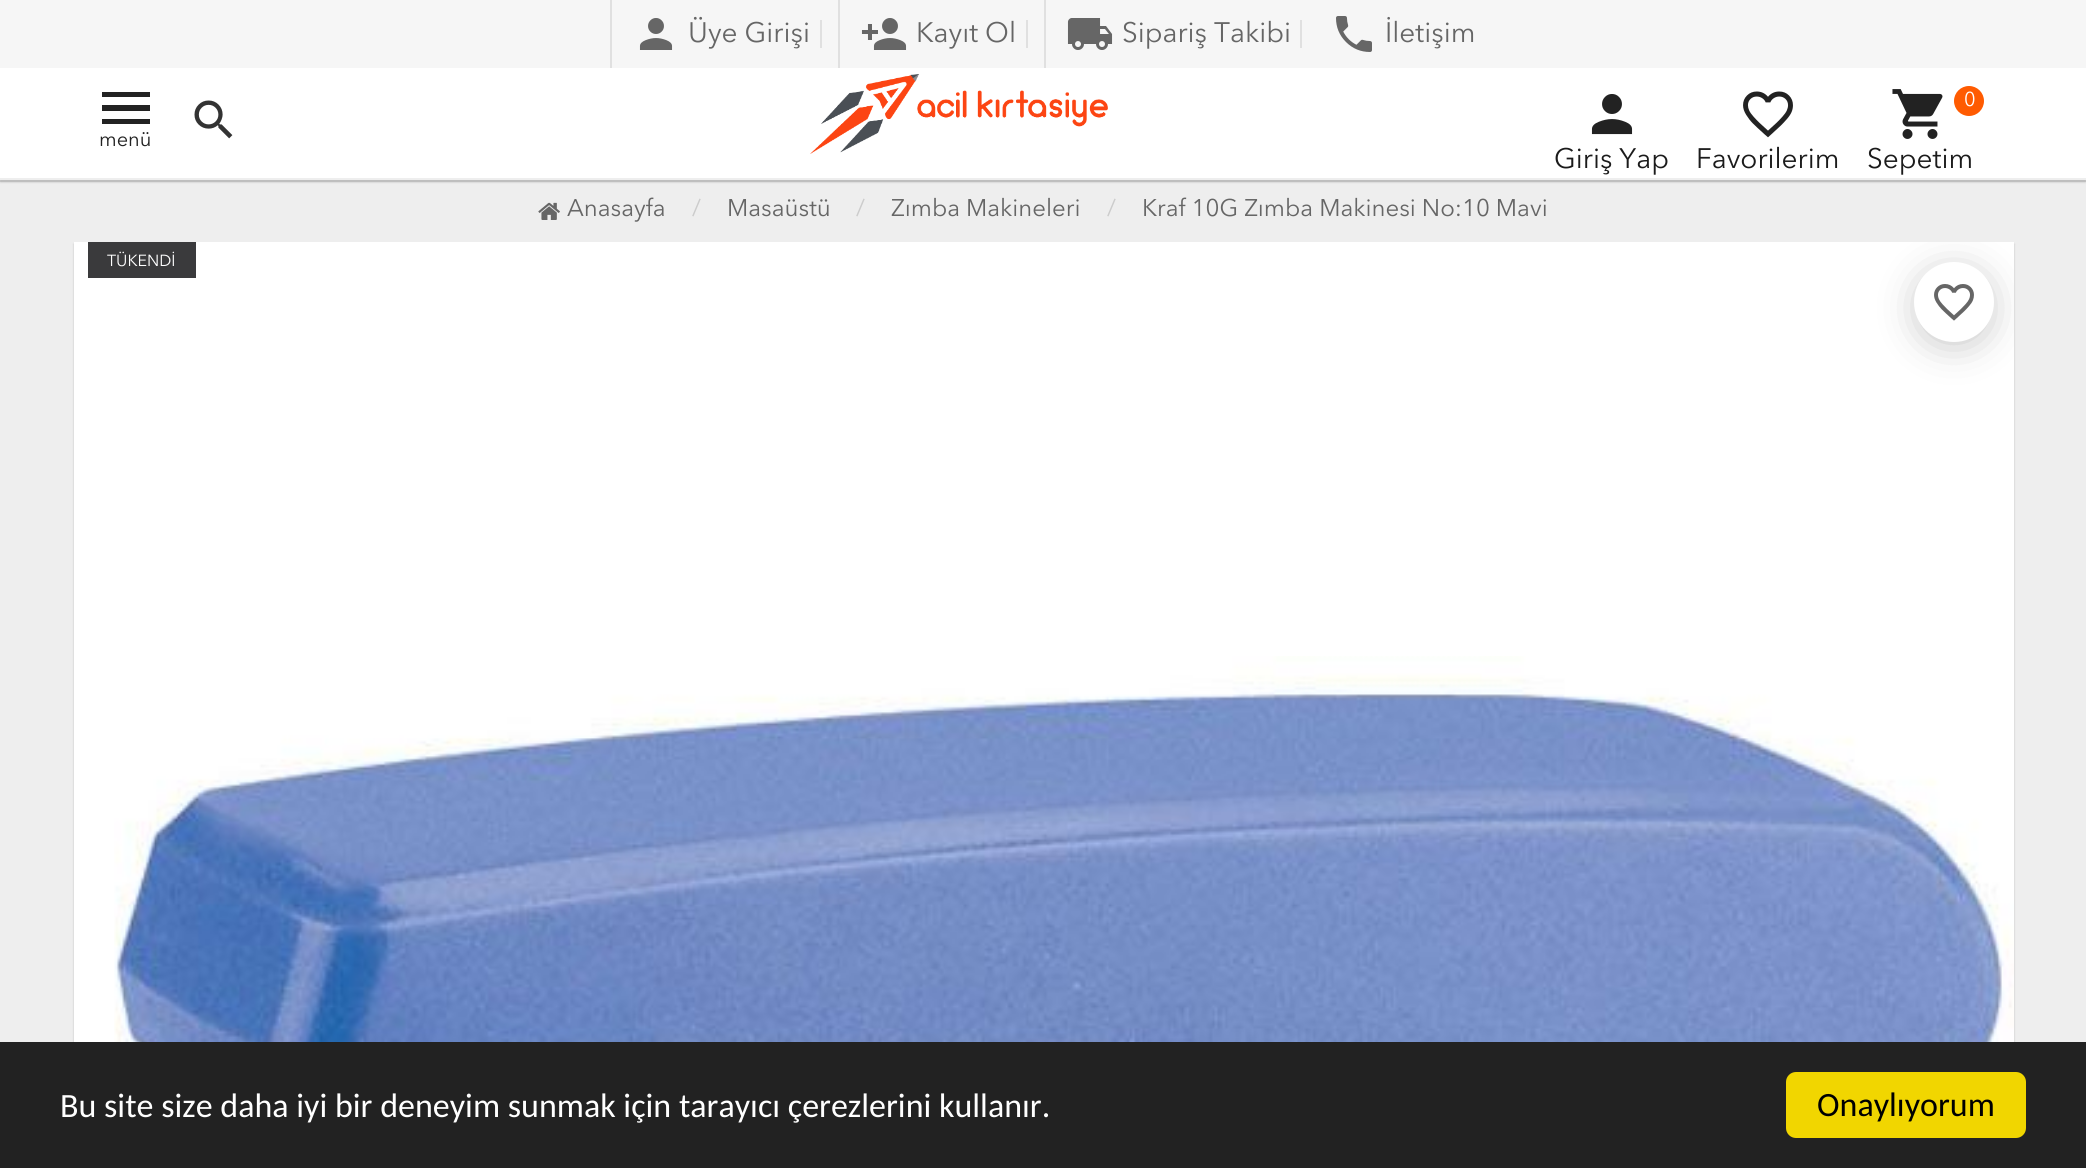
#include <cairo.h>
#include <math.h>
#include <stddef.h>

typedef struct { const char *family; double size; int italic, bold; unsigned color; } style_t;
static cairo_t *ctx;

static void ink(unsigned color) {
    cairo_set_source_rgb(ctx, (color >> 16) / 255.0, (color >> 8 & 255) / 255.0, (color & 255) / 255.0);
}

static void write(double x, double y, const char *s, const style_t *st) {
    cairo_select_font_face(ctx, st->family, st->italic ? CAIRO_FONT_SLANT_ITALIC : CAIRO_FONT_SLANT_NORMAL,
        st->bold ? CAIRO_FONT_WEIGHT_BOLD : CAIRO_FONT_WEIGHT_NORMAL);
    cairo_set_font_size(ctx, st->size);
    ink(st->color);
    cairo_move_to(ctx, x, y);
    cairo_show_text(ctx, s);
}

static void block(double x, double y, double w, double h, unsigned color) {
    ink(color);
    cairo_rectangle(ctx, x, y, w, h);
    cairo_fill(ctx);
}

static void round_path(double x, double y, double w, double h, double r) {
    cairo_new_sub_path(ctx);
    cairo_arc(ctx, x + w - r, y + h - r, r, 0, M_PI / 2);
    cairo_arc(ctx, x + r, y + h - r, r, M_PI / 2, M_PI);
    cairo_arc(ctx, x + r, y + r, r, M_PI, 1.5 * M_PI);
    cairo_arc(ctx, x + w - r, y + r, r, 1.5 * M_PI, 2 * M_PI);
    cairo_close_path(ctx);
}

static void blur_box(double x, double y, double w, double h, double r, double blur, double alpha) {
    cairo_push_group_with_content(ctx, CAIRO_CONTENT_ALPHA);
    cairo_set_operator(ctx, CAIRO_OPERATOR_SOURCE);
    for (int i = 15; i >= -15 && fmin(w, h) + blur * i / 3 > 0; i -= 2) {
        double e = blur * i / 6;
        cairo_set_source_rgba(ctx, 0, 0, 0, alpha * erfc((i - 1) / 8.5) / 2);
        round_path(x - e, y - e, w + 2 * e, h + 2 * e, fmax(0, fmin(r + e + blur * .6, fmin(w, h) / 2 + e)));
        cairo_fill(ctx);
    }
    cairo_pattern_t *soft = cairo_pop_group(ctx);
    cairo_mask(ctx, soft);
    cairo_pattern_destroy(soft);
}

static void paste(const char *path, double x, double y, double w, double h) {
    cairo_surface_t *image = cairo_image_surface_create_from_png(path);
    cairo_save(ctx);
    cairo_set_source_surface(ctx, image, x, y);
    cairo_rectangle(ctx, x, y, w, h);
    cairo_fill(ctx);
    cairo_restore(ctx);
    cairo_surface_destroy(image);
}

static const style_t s1 = {"Avenir Next", 28, 0, 0, 0x666666};
static const style_t s2 = {"Avenir Next", 20, 0, 0, 0x222222};
static const style_t s3 = {"Avenir Next", 28, 0, 0, 0x1b1b1b};
static const style_t s4 = {"Avenir Next", 20, 0, 0, 0xffffff};
static const style_t s5 = {"Avenir Next", 24, 0, 0, 0x666666};
static const style_t s6 = {"Avenir Next", 24, 0, 0, 0xcccccc};
static const style_t s7 = {"Avenir Next", 16, 0, 0, 0xffffff};
static const style_t s8 = {"Carlito", 34, 0, 0, 0xffffff};
static const style_t s9 = {"Carlito", 34, 0, 0, 0x000000};

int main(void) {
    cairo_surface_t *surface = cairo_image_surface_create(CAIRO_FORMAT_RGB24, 2086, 1168);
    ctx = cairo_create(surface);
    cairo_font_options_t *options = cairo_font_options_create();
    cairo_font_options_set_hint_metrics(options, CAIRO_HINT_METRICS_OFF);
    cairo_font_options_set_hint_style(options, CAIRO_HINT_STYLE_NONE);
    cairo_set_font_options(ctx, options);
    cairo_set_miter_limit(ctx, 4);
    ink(0xeeeeee);
    cairo_paint(ctx);
    block(0, 68, 2086, 110, 0xffffff);
    block(0, 180, 2086, 2, 0xdddddd);
    block(0, 0, 2086, 68, 0xf6f6f6);
    block(610, 0, 2, 68, 0xe0e0e0);
    block(820, 20, 2, 28, 0xe0e0e0);
    paste("pic1.png", 639, 18, 34, 32);
    write(688, 42, "Üye Girişi", &s1);
    block(838, 0, 2, 68, 0xe0e0e0);
    block(1026, 20, 2, 28, 0xe0e0e0);
    paste("pic2.png", 861, 18, 46, 32);
    write(916, 42, "Kayıt Ol", &s1);
    block(1044, 0, 2, 68, 0xe0e0e0);
    block(1300, 20, 2, 28, 0xe0e0e0);
    paste("pic3.png", 1067, 18, 46, 32);
    write(1122, 42, "Sipariş Takibi", &s1);
    paste("pic4.png", 1336, 16, 36, 36);
    write(1385, 42, "İletişim", &s1);
    ink(0x222222);
    cairo_new_path(ctx);
    cairo_move_to(ctx, 102, 92);
    cairo_line_to(ctx, 150, 92);
    cairo_line_to(ctx, 150, 97);
    cairo_line_to(ctx, 102, 97);
    cairo_close_path(ctx);
    cairo_move_to(ctx, 102, 111);
    cairo_line_to(ctx, 102, 105);
    cairo_line_to(ctx, 150, 105);
    cairo_line_to(ctx, 150, 111);
    cairo_close_path(ctx);
    cairo_move_to(ctx, 102, 124);
    cairo_line_to(ctx, 102, 119);
    cairo_line_to(ctx, 150, 119);
    cairo_line_to(ctx, 150, 124);
    cairo_close_path(ctx);
    cairo_fill(ctx);
    write(99, 146, "menü", &s2);
    paste("pic5.png", 194, 100, 39, 39);
    paste("pic6.png", 810, 74, 298, 80);
    paste("pic7.png", 1591, 94, 42, 41);
    write(1554, 168, "Giriş Yap", &s3);
    paste("pic8.png", 1743, 91, 50, 47);
    write(1696, 168, "Favorilerim", &s3);
    paste("pic9.png", 1892, 89, 51, 50);
    ink(0xff5b01);
    cairo_arc(ctx, 1969, 101, 15, 0, 2 * M_PI);
    cairo_fill(ctx);
    write(1964, 106, "0", &s4);
    write(1867, 168, "Sepetim", &s3);
    ink(0x000000);
    blur_box(0, 180, 2086, 2, 0, 1, 0.2);
    block(0, 178, 2086, 2, 0xeeeeee);
    paste("pic10.png", 538, 202, 22, 18);
    write(567, 216, "Anasayfa", &s5);
    write(692, 216, "/", &s6);
    write(727, 216, "Masaüstü", &s5);
    write(856, 216, "/", &s6);
    write(891, 216, "Zımba Makineleri", &s5);
    write(1107, 216, "/", &s6);
    write(1142, 216, "Kraf 10G Zımba Makinesi No:10 Mavi", &s5);
    ink(0x000000);
    blur_box(74, 244, 1940, 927, 0, 1, 0.2);
    block(74, 242, 1940, 800, 0xffffff);
    block(88, 242, 108, 36, 0x3a3a3c);
    write(107, 266, "TÜKENDİ", &s7);
    cairo_save(ctx);
    cairo_rectangle(ctx, 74, 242, 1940, 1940);
    cairo_clip(ctx);
    ink(0x000000);
    blur_box(1920, 274, 68, 68, 34, 20, 0.25);
    cairo_restore(ctx);
    cairo_arc(ctx, 1954, 302, 40, 0, 2 * M_PI);
    cairo_fill(ctx);
    paste("pic11.png", 1934, 284, 40, 37);
    paste("pic12.png", 114, 656, 1900, 386);
    block(0, 1042, 2086, 126, 0x222222);
    write(60, 1117, "Bu site size daha iyi bir deneyim sunmak için tarayıcı çerezlerini kullanır.", &s8);
    ink(0xf1d600);
    round_path(1786, 1072, 240, 66, 10);
    cairo_fill(ctx);
    write(1817, 1116, "Onaylıyorum", &s9);
    cairo_surface_write_to_png(surface, "screenshot.png");
    cairo_font_options_destroy(options);
    cairo_destroy(ctx);
    cairo_surface_destroy(surface);
    return 0;
}
